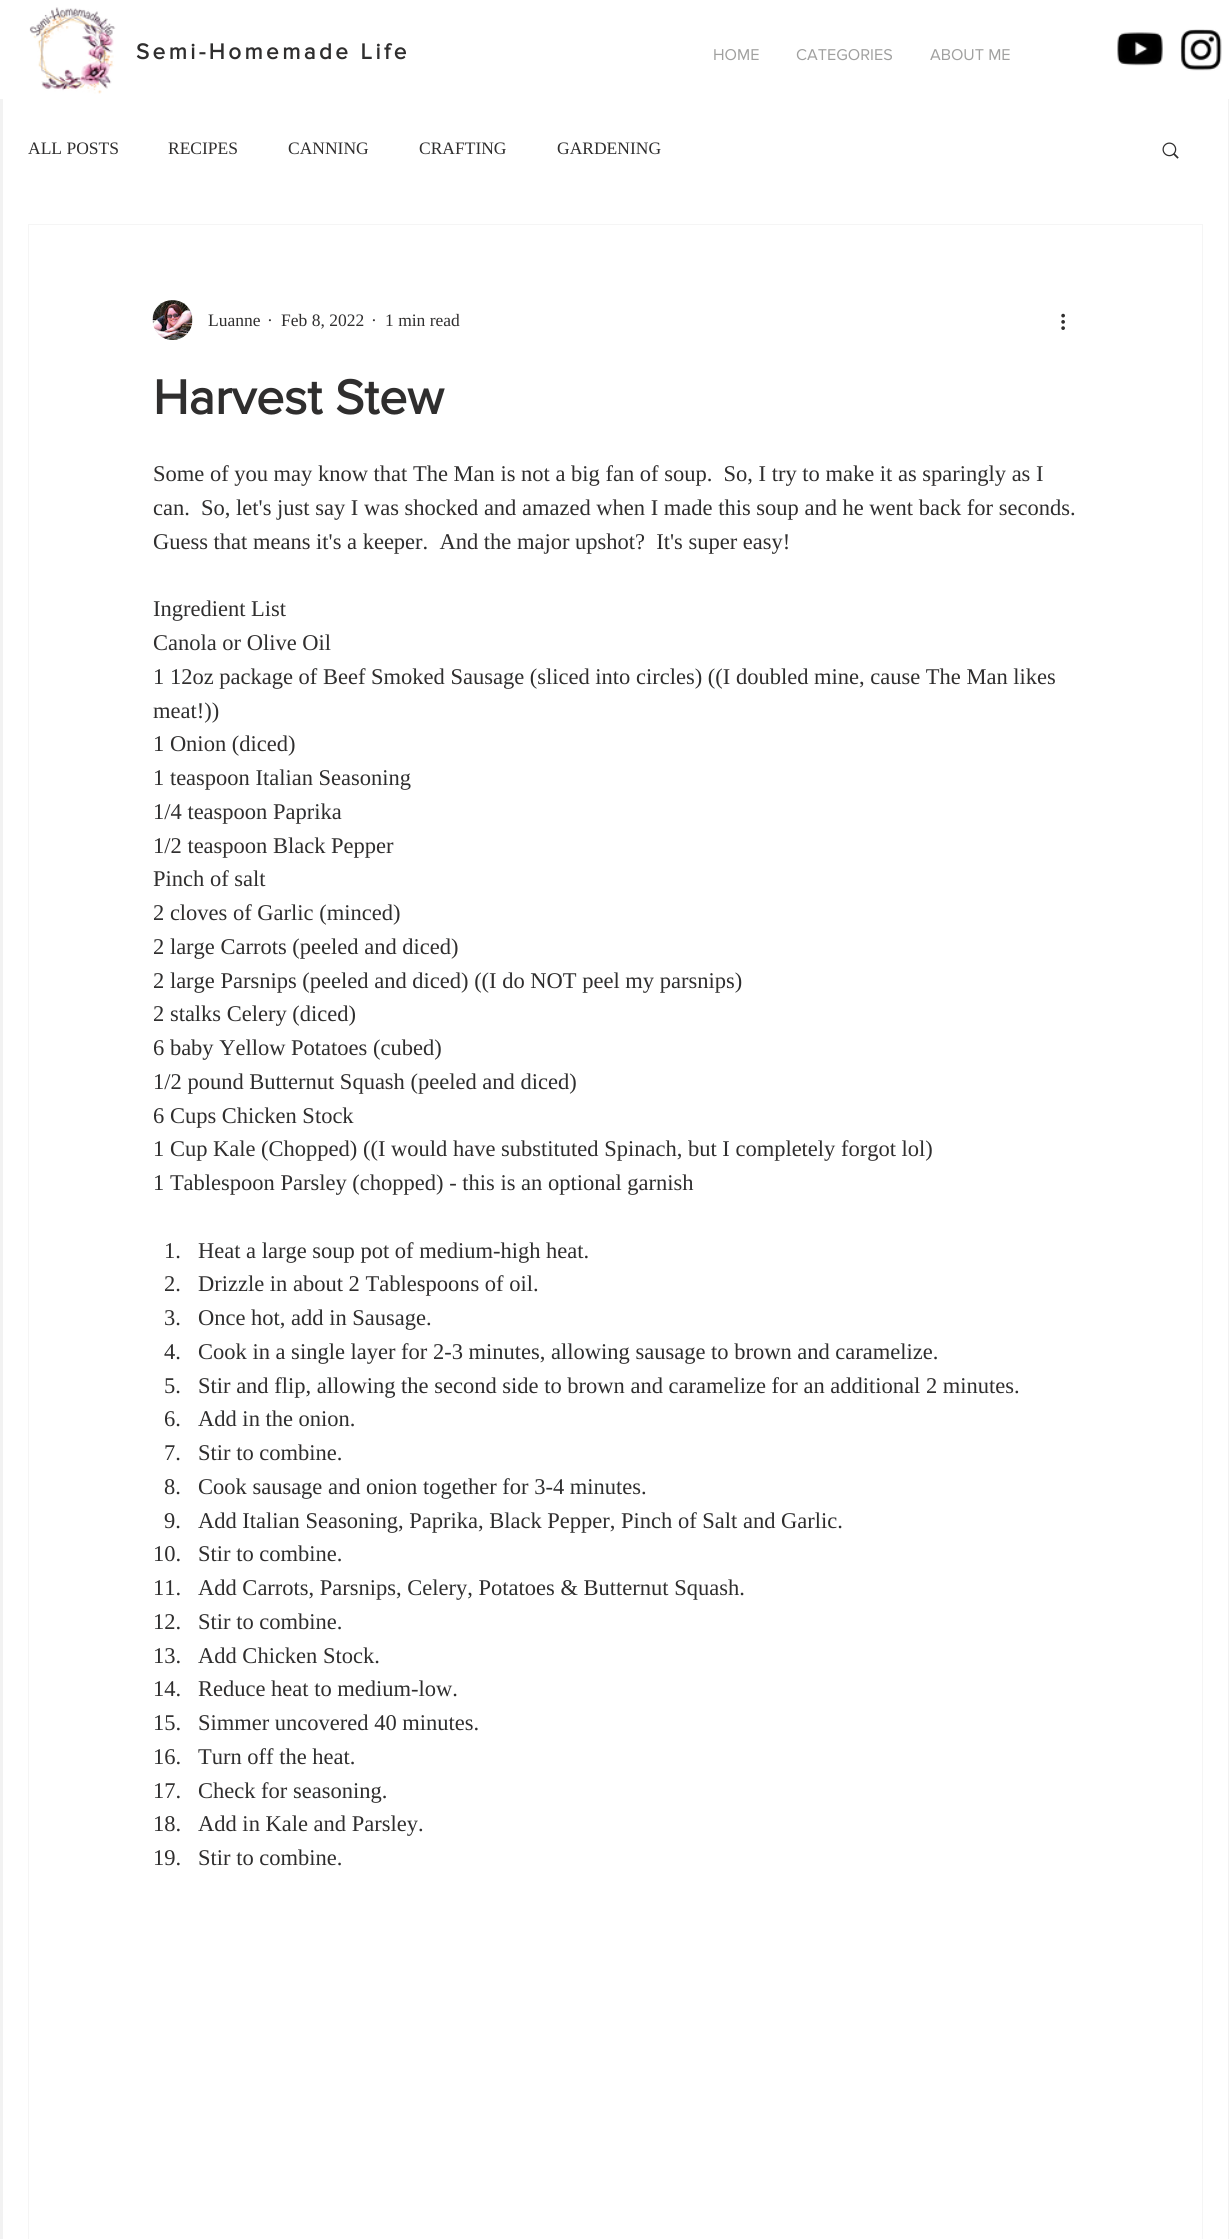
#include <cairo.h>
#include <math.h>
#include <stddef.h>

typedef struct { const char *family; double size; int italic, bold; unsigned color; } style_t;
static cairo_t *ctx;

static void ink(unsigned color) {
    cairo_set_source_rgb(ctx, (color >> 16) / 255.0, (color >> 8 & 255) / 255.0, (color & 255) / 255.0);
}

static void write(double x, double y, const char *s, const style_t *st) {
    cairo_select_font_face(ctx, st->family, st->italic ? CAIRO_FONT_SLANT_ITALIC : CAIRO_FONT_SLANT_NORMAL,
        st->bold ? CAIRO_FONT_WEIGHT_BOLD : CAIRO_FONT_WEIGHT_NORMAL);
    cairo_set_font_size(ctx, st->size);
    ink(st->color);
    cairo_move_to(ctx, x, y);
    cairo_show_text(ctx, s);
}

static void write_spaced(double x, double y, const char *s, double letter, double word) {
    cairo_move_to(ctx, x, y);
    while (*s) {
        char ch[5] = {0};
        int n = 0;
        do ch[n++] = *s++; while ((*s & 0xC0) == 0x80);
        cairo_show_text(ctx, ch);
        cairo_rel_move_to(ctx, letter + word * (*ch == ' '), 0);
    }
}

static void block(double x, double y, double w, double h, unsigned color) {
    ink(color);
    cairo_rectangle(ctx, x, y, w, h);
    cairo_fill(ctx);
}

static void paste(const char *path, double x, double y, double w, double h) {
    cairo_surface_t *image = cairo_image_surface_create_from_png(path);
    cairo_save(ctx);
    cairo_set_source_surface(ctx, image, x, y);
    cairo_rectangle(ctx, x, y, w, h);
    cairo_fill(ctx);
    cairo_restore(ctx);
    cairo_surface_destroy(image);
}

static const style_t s1 = {"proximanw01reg", 16.25, 0, 0, 0xa0a09f};
static const style_t s2 = {"Liberation Serif", 17.5, 0, 0, 0x2f2e2e};
static const style_t s3 = {"proximanw01reg", 50, 0, 1, 0x2f2e2e};
static const style_t s4 = {"Liberation Serif", 22.5, 0, 0, 0x2f2e2e};

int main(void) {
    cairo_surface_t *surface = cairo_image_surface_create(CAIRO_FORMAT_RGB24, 1229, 2239);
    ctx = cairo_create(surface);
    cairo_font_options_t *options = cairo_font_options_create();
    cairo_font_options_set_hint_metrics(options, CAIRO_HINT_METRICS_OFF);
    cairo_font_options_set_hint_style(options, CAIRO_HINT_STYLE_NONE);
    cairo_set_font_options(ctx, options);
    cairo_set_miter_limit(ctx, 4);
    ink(0xf2f2f2);
    cairo_paint(ctx);
    block(0, 0, 1229, 99, 0xffffff);
    paste("pic1.png", 29, 7, 87, 87);
    cairo_select_font_face(ctx, "proximanw01reg", CAIRO_FONT_SLANT_NORMAL, CAIRO_FONT_WEIGHT_BOLD);
    cairo_set_font_size(ctx, 22.5);
    ink(0x2f2e2e);
    write_spaced(136, 59, "Semi-Homemade Life", 3.4, 0);
    write(713, 60, "HOME", &s1);
    write(796, 60, "CATEGORIES", &s1);
    write(930, 60, "ABOUT ME", &s1);
    paste("pic2.png", 1117, 32, 46, 34);
    paste("pic3.png", 1180, 29, 42, 42);
    block(3, 99, 1225, 2140, 0xffffff);
    write(28, 154, "ALL POSTS", &s2);
    write(168, 154, "RECIPES", &s2);
    write(288, 154, "CANNING", &s2);
    write(419, 154, "CRAFTING", &s2);
    write(557, 154, "GARDENING", &s2);
    paste("pic4.png", 1162, 142, 17, 17);
    cairo_rectangle(ctx, 28.5, 224.5, 1174, 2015);
    ink(0xf5f5f5);
    cairo_set_line_width(ctx, 1);
    cairo_stroke(ctx);
    paste("pic5.png", 152, 300, 41, 40);
    write(208, 326, "Luanne", &s2);
    write(267, 326, "·", &s2);
    write(281, 326, "Feb 8, 2022", &s2);
    write(371, 326, "·", &s2);
    write(385, 326, "1 min read", &s2);
    paste("pic6.png", 1061, 313, 4, 17);
    write(153, 414, "Harvest Stew", &s3);
    write(153, 481, "Some of you may know that The Man is not a big fan of soup.  So, I try to make it as sparingly as I", &s4);
    write(153, 515, "can.  So, let's just say I was shocked and amazed when I made this soup and he went back for seconds.", &s4);
    write(153, 549, "Guess that means it's a keeper.  And the major upshot?  It's super easy!", &s4);
    write(153, 616, "Ingredient List", &s4);
    write(153, 650, "Canola or Olive Oil", &s4);
    write(153, 684, "1 12oz package of Beef Smoked Sausage (sliced into circles) ((I doubled mine, cause The Man likes", &s4);
    write(153, 718, "meat!))", &s4);
    write(153, 751, "1 Onion (diced)", &s4);
    write(153, 785, "1 teaspoon Italian Seasoning", &s4);
    write(153, 819, "1/4 teaspoon Paprika", &s4);
    write(153, 853, "1/2 teaspoon Black Pepper", &s4);
    write(153, 886, "Pinch of salt", &s4);
    write(153, 920, "2 cloves of Garlic (minced)", &s4);
    write(153, 954, "2 large Carrots (peeled and diced)", &s4);
    write(153, 988, "2 large Parsnips (peeled and diced) ((I do NOT peel my parsnips)", &s4);
    write(153, 1021, "2 stalks Celery (diced)", &s4);
    write(153, 1055, "6 baby Yellow Potatoes (cubed)", &s4);
    write(153, 1089, "1/2 pound Butternut Squash (peeled and diced)", &s4);
    write(153, 1123, "6 Cups Chicken Stock", &s4);
    write(153, 1156, "1 Cup Kale (Chopped) ((I would have substituted Spinach, but I completely forgot lol)", &s4);
    write(153, 1190, "1 Tablespoon Parsley (chopped) - this is an optional garnish", &s4);
    write(164, 1258, "1.", &s4);
    write(198, 1258, "Heat a large soup pot of medium-high heat.", &s4);
    write(164, 1291, "2.", &s4);
    write(198, 1291, "Drizzle in about 2 Tablespoons of oil.", &s4);
    write(164, 1325, "3.", &s4);
    write(198, 1325, "Once hot, add in Sausage.", &s4);
    write(164, 1359, "4.", &s4);
    write(198, 1359, "Cook in a single layer for 2-3 minutes, allowing sausage to brown and caramelize.", &s4);
    write(164, 1393, "5.", &s4);
    write(198, 1393, "Stir and flip, allowing the second side to brown and caramelize for an additional 2 minutes.", &s4);
    write(164, 1426, "6.", &s4);
    write(198, 1426, "Add in the onion.", &s4);
    write(164, 1460, "7.", &s4);
    write(198, 1460, "Stir to combine.", &s4);
    write(164, 1494, "8.", &s4);
    write(198, 1494, "Cook sausage and onion together for 3-4 minutes.", &s4);
    write(164, 1528, "9.", &s4);
    write(198, 1528, "Add Italian Seasoning, Paprika, Black Pepper, Pinch of Salt and Garlic.", &s4);
    write(153, 1561, "10.", &s4);
    write(198, 1561, "Stir to combine.", &s4);
    write(153, 1595, "11.", &s4);
    write(198, 1595, "Add Carrots, Parsnips, Celery, Potatoes & Butternut Squash.", &s4);
    write(153, 1629, "12.", &s4);
    write(198, 1629, "Stir to combine.", &s4);
    write(153, 1663, "13.", &s4);
    write(198, 1663, "Add Chicken Stock.", &s4);
    write(153, 1696, "14.", &s4);
    write(198, 1696, "Reduce heat to medium-low.", &s4);
    write(153, 1730, "15.", &s4);
    write(198, 1730, "Simmer uncovered 40 minutes.", &s4);
    write(153, 1764, "16.", &s4);
    write(198, 1764, "Turn off the heat.", &s4);
    write(153, 1798, "17.", &s4);
    write(198, 1798, "Check for seasoning.", &s4);
    write(153, 1831, "18.", &s4);
    write(198, 1831, "Add in Kale and Parsley.", &s4);
    write(153, 1865, "19.", &s4);
    write(198, 1865, "Stir to combine.", &s4);
    cairo_surface_write_to_png(surface, "screenshot.png");
    cairo_font_options_destroy(options);
    cairo_destroy(ctx);
    cairo_surface_destroy(surface);
    return 0;
}
